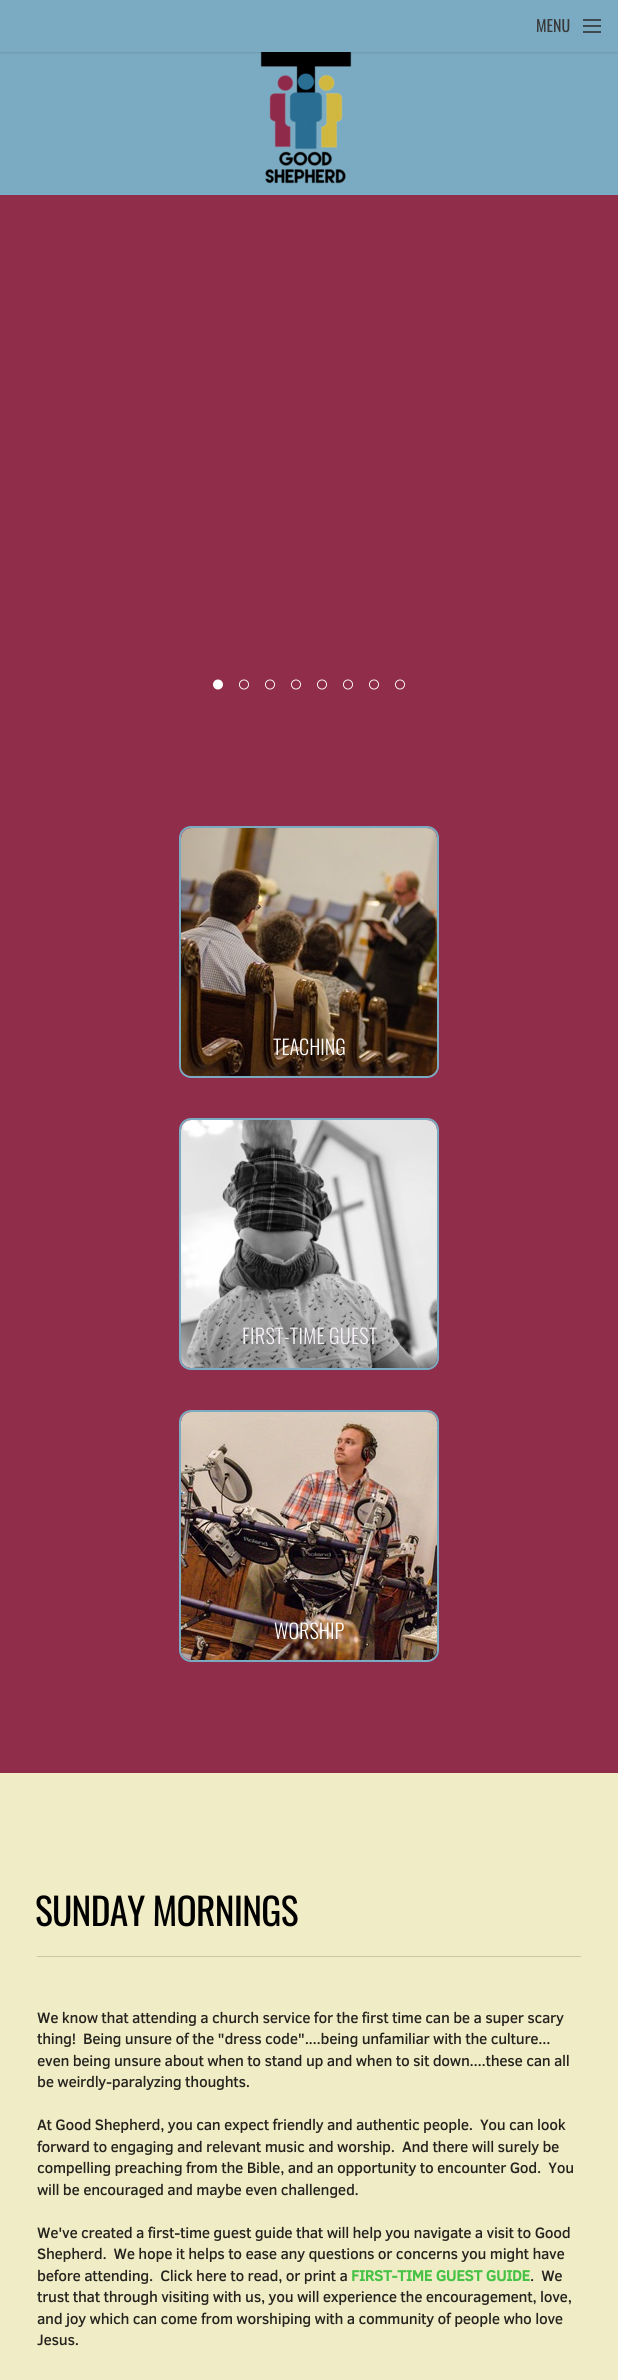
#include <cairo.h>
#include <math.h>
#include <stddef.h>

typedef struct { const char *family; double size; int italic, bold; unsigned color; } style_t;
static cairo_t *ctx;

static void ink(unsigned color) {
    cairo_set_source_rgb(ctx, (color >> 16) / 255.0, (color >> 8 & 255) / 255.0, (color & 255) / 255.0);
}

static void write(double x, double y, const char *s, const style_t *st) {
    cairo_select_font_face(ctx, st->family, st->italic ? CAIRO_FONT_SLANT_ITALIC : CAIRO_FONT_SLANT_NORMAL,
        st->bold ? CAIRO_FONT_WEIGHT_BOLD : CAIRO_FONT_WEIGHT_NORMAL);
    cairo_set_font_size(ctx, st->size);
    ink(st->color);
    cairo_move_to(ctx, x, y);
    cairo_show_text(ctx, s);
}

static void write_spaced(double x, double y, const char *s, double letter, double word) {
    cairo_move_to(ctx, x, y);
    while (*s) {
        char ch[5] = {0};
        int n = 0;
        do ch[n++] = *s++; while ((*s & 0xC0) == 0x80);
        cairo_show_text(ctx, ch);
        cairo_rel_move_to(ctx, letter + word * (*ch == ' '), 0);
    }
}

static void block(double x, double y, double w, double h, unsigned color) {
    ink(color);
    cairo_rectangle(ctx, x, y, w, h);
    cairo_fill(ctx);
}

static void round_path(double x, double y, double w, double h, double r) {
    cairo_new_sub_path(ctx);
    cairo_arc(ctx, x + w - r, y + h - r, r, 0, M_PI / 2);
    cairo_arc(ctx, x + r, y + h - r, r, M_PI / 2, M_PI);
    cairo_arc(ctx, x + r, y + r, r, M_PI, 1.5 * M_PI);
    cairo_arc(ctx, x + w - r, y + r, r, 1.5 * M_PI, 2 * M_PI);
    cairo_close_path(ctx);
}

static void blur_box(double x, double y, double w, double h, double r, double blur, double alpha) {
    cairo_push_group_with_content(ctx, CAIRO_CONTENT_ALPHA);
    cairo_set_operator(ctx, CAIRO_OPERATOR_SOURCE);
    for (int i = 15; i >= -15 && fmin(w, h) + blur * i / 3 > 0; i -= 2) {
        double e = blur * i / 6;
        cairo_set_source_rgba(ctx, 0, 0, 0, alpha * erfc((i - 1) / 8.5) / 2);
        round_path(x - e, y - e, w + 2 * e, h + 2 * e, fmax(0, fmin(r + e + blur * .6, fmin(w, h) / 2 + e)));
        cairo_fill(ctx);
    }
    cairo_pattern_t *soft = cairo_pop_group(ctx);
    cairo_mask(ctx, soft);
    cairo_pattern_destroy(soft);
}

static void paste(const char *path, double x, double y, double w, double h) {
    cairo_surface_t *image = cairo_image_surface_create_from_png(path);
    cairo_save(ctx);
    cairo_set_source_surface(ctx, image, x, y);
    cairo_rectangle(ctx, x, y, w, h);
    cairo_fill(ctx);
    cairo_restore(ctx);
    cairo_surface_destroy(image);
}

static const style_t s1 = {"Oswald", 16, 0, 0, 0x393939};
static const style_t s2 = {"Oswald Light", 20.25, 0, 0, 0xffffff};

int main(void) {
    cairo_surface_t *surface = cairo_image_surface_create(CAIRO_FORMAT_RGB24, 618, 2380);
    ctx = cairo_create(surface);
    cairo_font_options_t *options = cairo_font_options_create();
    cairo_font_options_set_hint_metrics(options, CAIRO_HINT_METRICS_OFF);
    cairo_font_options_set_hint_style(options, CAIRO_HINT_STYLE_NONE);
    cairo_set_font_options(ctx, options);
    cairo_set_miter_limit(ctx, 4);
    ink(0x8f2d4a);
    cairo_paint(ctx);
    block(0, 52, 618, 143, 0x7aabc2);
    paste("pic1.png", 260, 52, 92, 132);
    ink(0x000000);
    blur_box(0, 0, 618, 52, 0, 1.5, 0.2);
    block(0, 0, 618, 52, 0x7aabc2);
    write(536, 32, "MENU", &s1);
    block(583, 19, 18, 2, 0x3d494e);
    block(583, 25, 18, 2, 0x3d494e);
    block(583, 31, 18, 2, 0x3d494e);
    paste("pic2.png", 213, 679, 10, 11);
    paste("pic3.png", 239, 679, 10, 11);
    paste("pic3.png", 265, 679, 10, 11);
    paste("pic3.png", 291, 679, 10, 11);
    paste("pic3.png", 317, 679, 10, 11);
    paste("pic3.png", 343, 679, 10, 11);
    paste("pic3.png", 369, 679, 10, 11);
    paste("pic3.png", 395, 679, 10, 11);
    round_path(180, 827, 258, 250, 11);
    ink(0x7aabc2);
    cairo_stroke(ctx);
    paste("pic4.png", 181, 828, 256, 248);
    write(273, 1055, "TEACHING", &s2);
    round_path(180, 1119, 258, 250, 11);
    ink(0x7aabc2);
    cairo_stroke(ctx);
    paste("pic5.png", 181, 1120, 256, 248);
    ink(0xf5f0f5);
    write_spaced(242, 1344, "FIRST-TIME GUEST", 0.25, 0);
    round_path(180, 1411, 258, 250, 11);
    ink(0x7aabc2);
    cairo_stroke(ctx);
    paste("pic6.png", 181, 1412, 256, 248);
    write(274, 1639, "WORSHIP", &s2);
    block(0, 1773, 618, 607, 0xf0ecc5);
    block(37, 1956, 544, 1, 0xccc9a7);
    cairo_select_font_face(ctx, "Oswald", CAIRO_FONT_SLANT_NORMAL, CAIRO_FONT_WEIGHT_NORMAL);
    cairo_set_font_size(ctx, 37.5);
    ink(0x000000);
    write_spaced(35, 1926, "SUNDAY MORNINGS", -0.75, 0);
    cairo_select_font_face(ctx, "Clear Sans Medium", CAIRO_FONT_SLANT_NORMAL, CAIRO_FONT_WEIGHT_NORMAL);
    cairo_set_font_size(ctx, 15.35);
    ink(0x24231e);
    write_spaced(37, 2023, "We know that attending a church service for the first time can be a super scary", -0.3, 0);
    write_spaced(37, 2044, "thing!  Being unsure of the \"dress code\"....being unfamiliar with the culture...", -0.3, 0);
    write_spaced(37, 2066, "even being unsure about when to stand up and when to sit down....these can all", -0.3, 0);
    write_spaced(37, 2087, "be weirdly-paralyzing thoughts.", -0.3, 0);
    write_spaced(37, 2130, "At Good Shepherd, you can expect friendly and authentic people.  You can look", -0.3, 0);
    write_spaced(37, 2152, "forward to engaging and relevant music and worship.  And there will surely be", -0.3, 0);
    write_spaced(37, 2173, "compelling preaching from the Bible, and an opportunity to encounter God.  You", -0.3, 0);
    write_spaced(37, 2195, "will be encouraged and maybe even challenged.", -0.3, 0);
    write_spaced(37, 2238, "We've created a first-time guest guide that will help you navigate a visit to Good", -0.3, 0);
    write_spaced(37, 2259, "Shepherd.  We hope it helps to ease any questions or concerns you might have", -0.3, 0);
    write_spaced(37, 2281, "before attending.  Click here to read, or print a", -0.3, 0);
    cairo_select_font_face(ctx, "Clear Sans", CAIRO_FONT_SLANT_NORMAL, CAIRO_FONT_WEIGHT_BOLD);
    ink(0x46c246);
    write_spaced(351, 2281, "FIRST-TIME GUEST GUIDE", -0.3, 0);
    cairo_select_font_face(ctx, "Clear Sans Medium", CAIRO_FONT_SLANT_NORMAL, CAIRO_FONT_WEIGHT_NORMAL);
    ink(0x24231e);
    write_spaced(530, 2281, ".  We", -0.3, 0);
    write_spaced(37, 2302, "trust that through visiting with us, you will experience the encouragement, love,", -0.3, 0);
    write_spaced(37, 2324, "and joy which can come from worshiping with a community of people who love", -0.3, 0);
    write_spaced(37, 2345, "Jesus.", -0.3, 0);
    cairo_surface_write_to_png(surface, "screenshot.png");
    cairo_font_options_destroy(options);
    cairo_destroy(ctx);
    cairo_surface_destroy(surface);
    return 0;
}
